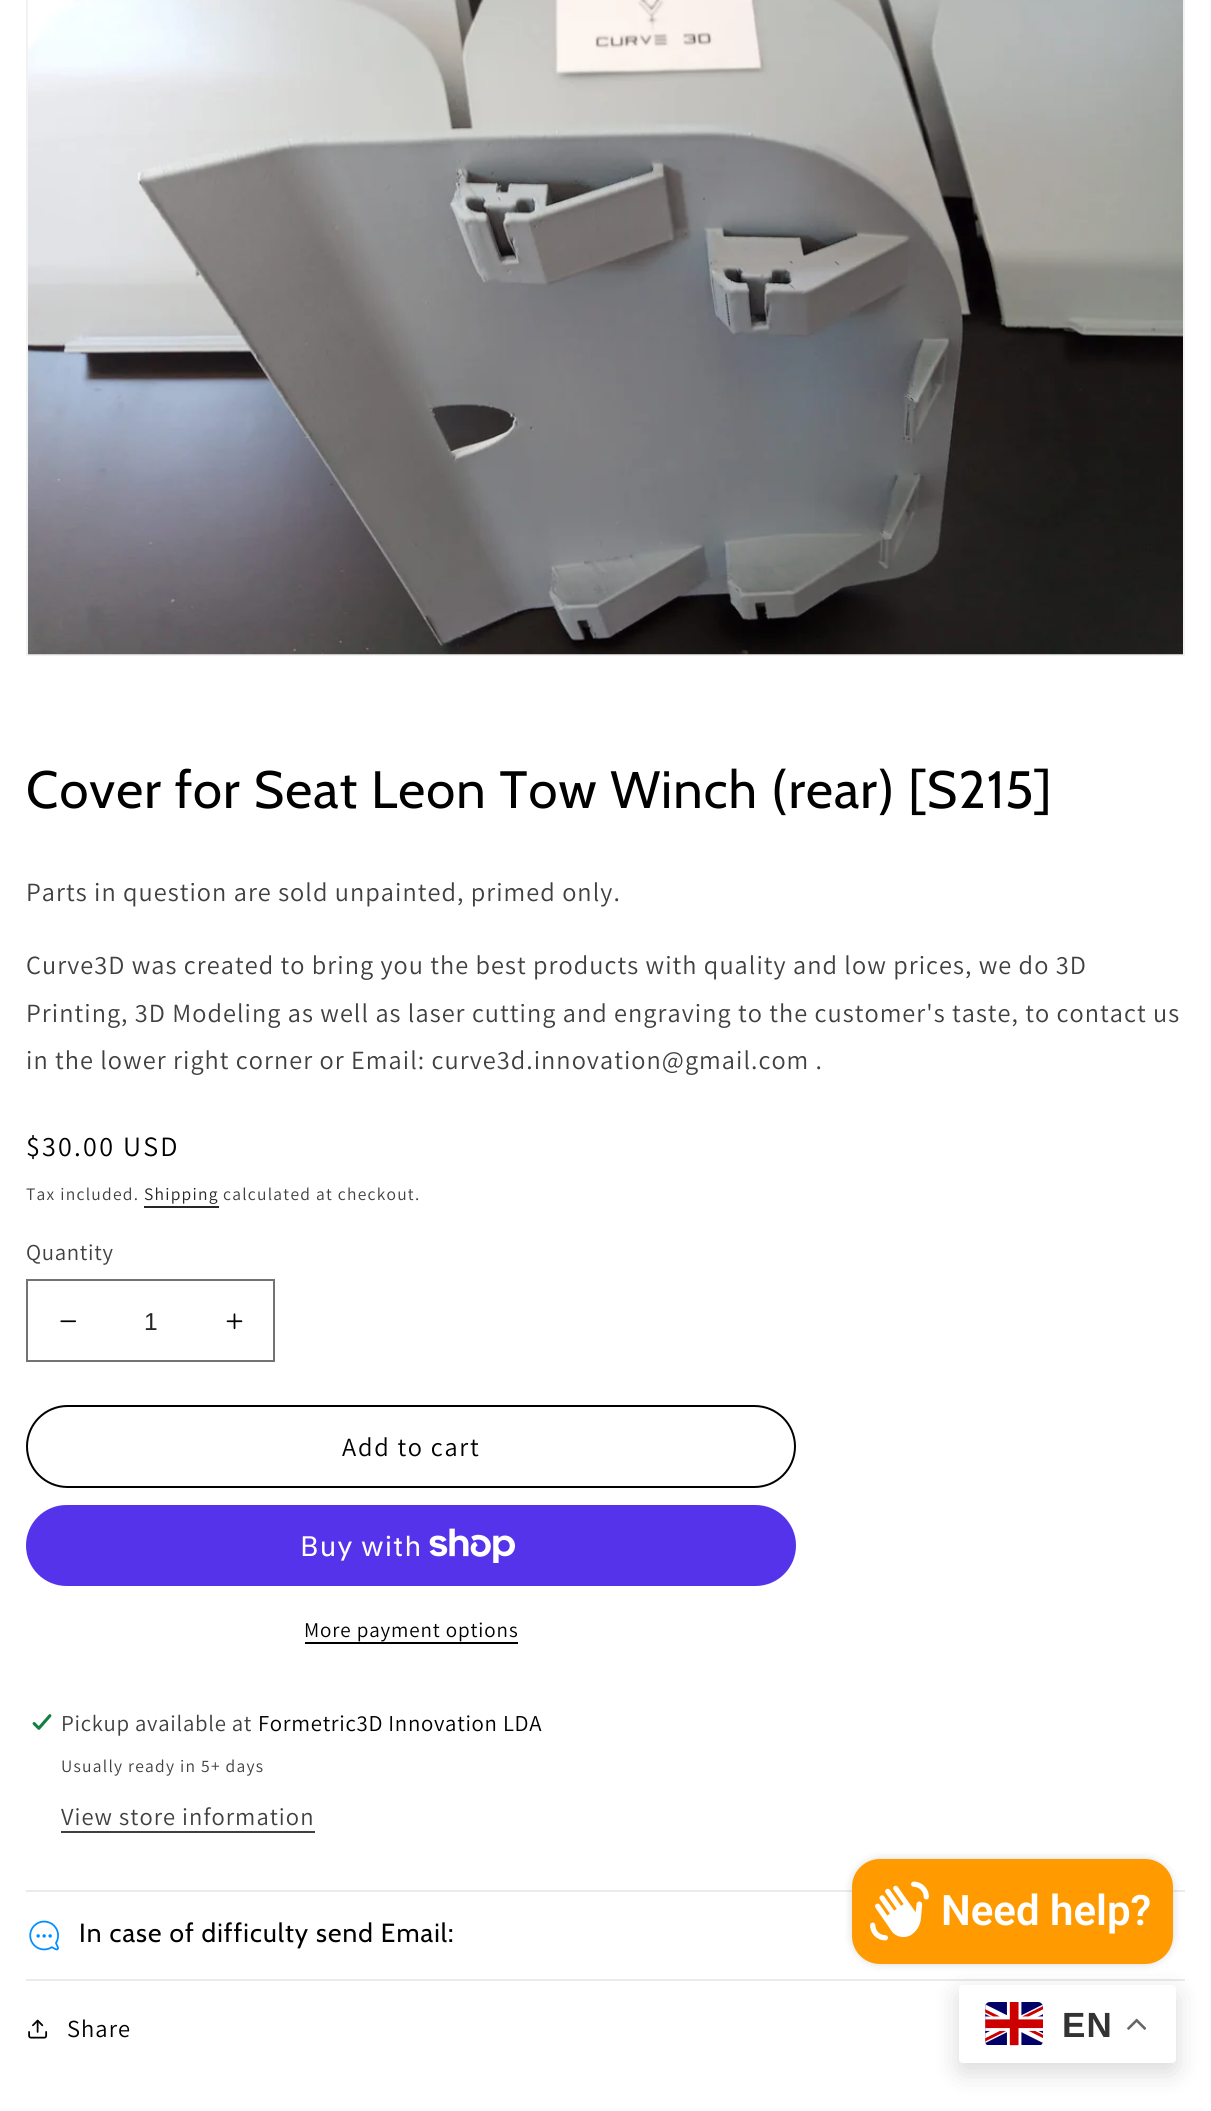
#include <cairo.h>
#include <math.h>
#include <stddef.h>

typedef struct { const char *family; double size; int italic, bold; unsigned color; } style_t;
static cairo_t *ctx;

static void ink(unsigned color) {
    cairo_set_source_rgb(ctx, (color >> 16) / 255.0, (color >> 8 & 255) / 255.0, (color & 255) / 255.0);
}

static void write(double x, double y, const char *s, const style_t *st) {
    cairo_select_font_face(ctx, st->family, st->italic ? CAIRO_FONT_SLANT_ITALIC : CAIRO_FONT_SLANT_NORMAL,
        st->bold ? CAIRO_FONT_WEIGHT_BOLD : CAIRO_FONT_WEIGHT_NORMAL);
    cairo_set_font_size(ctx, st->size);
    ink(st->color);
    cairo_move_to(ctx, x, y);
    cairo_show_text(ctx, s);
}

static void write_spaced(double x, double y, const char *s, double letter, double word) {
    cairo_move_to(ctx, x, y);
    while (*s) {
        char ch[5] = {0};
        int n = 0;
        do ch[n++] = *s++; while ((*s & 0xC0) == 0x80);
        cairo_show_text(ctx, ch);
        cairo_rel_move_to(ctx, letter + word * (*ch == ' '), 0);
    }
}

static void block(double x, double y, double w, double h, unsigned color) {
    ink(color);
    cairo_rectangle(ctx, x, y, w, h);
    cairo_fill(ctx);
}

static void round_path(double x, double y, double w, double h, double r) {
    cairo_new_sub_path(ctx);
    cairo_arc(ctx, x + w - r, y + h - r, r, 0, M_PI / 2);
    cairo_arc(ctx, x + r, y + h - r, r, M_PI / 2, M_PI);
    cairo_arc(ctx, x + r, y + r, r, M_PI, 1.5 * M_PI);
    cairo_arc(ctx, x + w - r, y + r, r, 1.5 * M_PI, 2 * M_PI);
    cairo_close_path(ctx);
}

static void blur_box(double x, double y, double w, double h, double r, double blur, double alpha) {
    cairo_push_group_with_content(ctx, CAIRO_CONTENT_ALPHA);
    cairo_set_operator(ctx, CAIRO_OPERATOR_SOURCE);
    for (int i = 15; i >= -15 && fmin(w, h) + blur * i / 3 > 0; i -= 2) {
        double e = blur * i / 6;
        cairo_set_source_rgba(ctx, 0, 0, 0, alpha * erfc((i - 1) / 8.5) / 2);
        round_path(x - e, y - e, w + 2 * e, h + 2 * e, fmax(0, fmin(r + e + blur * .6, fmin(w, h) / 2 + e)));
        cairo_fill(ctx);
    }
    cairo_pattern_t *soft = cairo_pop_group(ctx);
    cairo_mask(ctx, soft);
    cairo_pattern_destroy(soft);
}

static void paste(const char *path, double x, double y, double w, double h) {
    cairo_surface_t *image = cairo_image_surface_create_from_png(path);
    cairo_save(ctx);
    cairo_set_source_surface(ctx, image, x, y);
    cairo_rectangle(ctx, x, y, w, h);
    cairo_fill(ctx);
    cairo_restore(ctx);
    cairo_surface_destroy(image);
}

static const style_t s1 = {"Liberation Sans", 24.5, 0, 0, 0x262626};
static const style_t s2 = {"Roboto SemiBold", 42, 0, 0, 0xffffff};

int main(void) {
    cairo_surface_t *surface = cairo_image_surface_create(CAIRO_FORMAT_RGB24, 1211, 2111);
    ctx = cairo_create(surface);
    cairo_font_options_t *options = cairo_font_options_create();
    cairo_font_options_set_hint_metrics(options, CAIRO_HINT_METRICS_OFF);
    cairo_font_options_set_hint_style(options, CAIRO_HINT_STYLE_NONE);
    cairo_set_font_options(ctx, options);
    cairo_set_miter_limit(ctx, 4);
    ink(0xffffff);
    cairo_paint(ctx);
    cairo_rectangle(ctx, 27, -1, 1157, 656);
    ink(0xf2f2f2);
    cairo_stroke(ctx);
    paste("pic1.png", 28, 0, 1155, 655);
    cairo_select_font_face(ctx, "Cabin", CAIRO_FONT_SLANT_NORMAL, CAIRO_FONT_WEIGHT_NORMAL);
    cairo_set_font_size(ctx, 52.5);
    ink(0x000000);
    write_spaced(26, 808, "Cover for Seat Leon Tow Winch (rear) [S215]", 1.05, 0);
    cairo_select_font_face(ctx, "Assistant", CAIRO_FONT_SLANT_NORMAL, CAIRO_FONT_WEIGHT_NORMAL);
    cairo_set_font_size(ctx, 26.25);
    ink(0x404040);
    write_spaced(26, 901, "Parts in question are sold unpainted, primed only.", 1.05, 0);
    write_spaced(26, 974, "Curve3D was created to bring you the best products with quality and low prices, we do 3D", 1.05, 0);
    write_spaced(26, 1022, "Printing, 3D Modeling as well as laser cutting and engraving to the customer's taste, to contact us", 1.05, 0);
    write_spaced(26, 1069, "in the lower right corner or Email: curve3d.innovation@gmail.com .", 1.05, 0);
    cairo_set_font_size(ctx, 28);
    ink(0x000000);
    write_spaced(26, 1156, "$30.00 USD", 2.25, 0);
    cairo_set_font_size(ctx, 17.5);
    ink(0x404040);
    write_spaced(26, 1200, "Tax included.", 1.25, 0);
    ink(0x262626);
    write_spaced(144, 1200, "Shipping", 1.25, 0);
    block(144, 1206, 75, 2, 0x262626);
    ink(0x404040);
    write_spaced(223, 1200, "calculated at checkout.", 1.25, 0);
    cairo_set_font_size(ctx, 22.75);
    write_spaced(26, 1260, "Quantity", 0.7, 0);
    paste("pic2.png", 60, 1320, 17, 3);
    paste("pic3.png", 226, 1313, 17, 17);
    cairo_rectangle(ctx, 27, 1280, 247, 81);
    ink(0x737373);
    cairo_stroke(ctx);
    write(144, 1330, "1", &s1);
    round_path(27, 1406, 768, 81, 40.5);
    ink(0x000000);
    cairo_stroke(ctx);
    cairo_select_font_face(ctx, "Assistant", CAIRO_FONT_SLANT_NORMAL, CAIRO_FONT_WEIGHT_NORMAL);
    cairo_set_font_size(ctx, 26.25);
    write_spaced(342, 1456, "Add to cart", 1.75, 0);
    ink(0x5433eb);
    round_path(26, 1505, 770, 81, 40.5);
    cairo_fill(ctx);
    cairo_select_font_face(ctx, "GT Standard", CAIRO_FONT_SLANT_NORMAL, CAIRO_FONT_WEIGHT_NORMAL);
    cairo_set_font_size(ctx, 28);
    ink(0xffffff);
    write_spaced(300, 1556, "Buy with", 1.05, 0);
    paste("pic4.png", 429, 1528, 86, 35);
    cairo_select_font_face(ctx, "Assistant", CAIRO_FONT_SLANT_NORMAL, CAIRO_FONT_WEIGHT_NORMAL);
    cairo_set_font_size(ctx, 21);
    ink(0x000000);
    write_spaced(304, 1637, "More payment options", 0.9, 0);
    block(305, 1642, 213, 2, 0x000000);
    paste("pic5.png", 32, 1714, 20, 16);
    cairo_set_font_size(ctx, 22.75);
    ink(0x404040);
    write_spaced(61, 1731, "Pickup available at", 0.7, 0);
    ink(0x000000);
    write_spaced(258, 1731, "Formetric3D Innovation LDA", 0.7, 0);
    cairo_set_font_size(ctx, 17.5);
    ink(0x404040);
    write_spaced(61, 1772, "Usually ready in 5+ days", 1.25, 0);
    cairo_set_font_size(ctx, 24.5);
    write_spaced(61, 1825, "View store information", 1.05, 0);
    block(61, 1831, 254, 2, 0x404040);
    block(26, 1890, 1159, 2, 0xebebeb);
    block(26, 1979, 1159, 2, 0xebebeb);
    paste("pic6.png", 29, 1920, 30, 31);
    cairo_select_font_face(ctx, "Cabin", CAIRO_FONT_SLANT_NORMAL, CAIRO_FONT_WEIGHT_NORMAL);
    cairo_set_font_size(ctx, 26.25);
    ink(0x000000);
    write_spaced(79, 1942, "In case of difficulty send Email:", 1.05, 0);
    paste("pic7.png", 28, 2019, 20, 20);
    cairo_select_font_face(ctx, "Assistant", CAIRO_FONT_SLANT_NORMAL, CAIRO_FONT_WEIGHT_NORMAL);
    cairo_set_font_size(ctx, 24.5);
    write_spaced(67, 2037, "Share", 1.05, 0);
    ink(0x000000);
    blur_box(852, 1859, 321, 105, 28, 4.5, 0.15);
    ink(0xff9b00);
    round_path(852, 1859, 321, 105, 28);
    cairo_fill(ctx);
    paste("pic8.png", 870, 1881, 59, 60);
    write(941, 1925, "Need help?", &s2);
    ink(0x000000);
    blur_box(959, 1993, 217, 79, 4, 13, 0.15);
    ink(0xffffff);
    round_path(959, 1985, 217, 78, 4);
    cairo_fill(ctx);
    paste("pic9.png", 985, 2002, 58, 44);
    cairo_select_font_face(ctx, "Liberation Sans", CAIRO_FONT_SLANT_NORMAL, CAIRO_FONT_WEIGHT_BOLD);
    cairo_set_font_size(ctx, 35);
    ink(0x333333);
    write_spaced(1062, 2037, "EN", 1.05, 0);
    paste("pic10.png", 1127, 2018, 19, 12);
    cairo_surface_write_to_png(surface, "screenshot.png");
    cairo_font_options_destroy(options);
    cairo_destroy(ctx);
    cairo_surface_destroy(surface);
    return 0;
}
